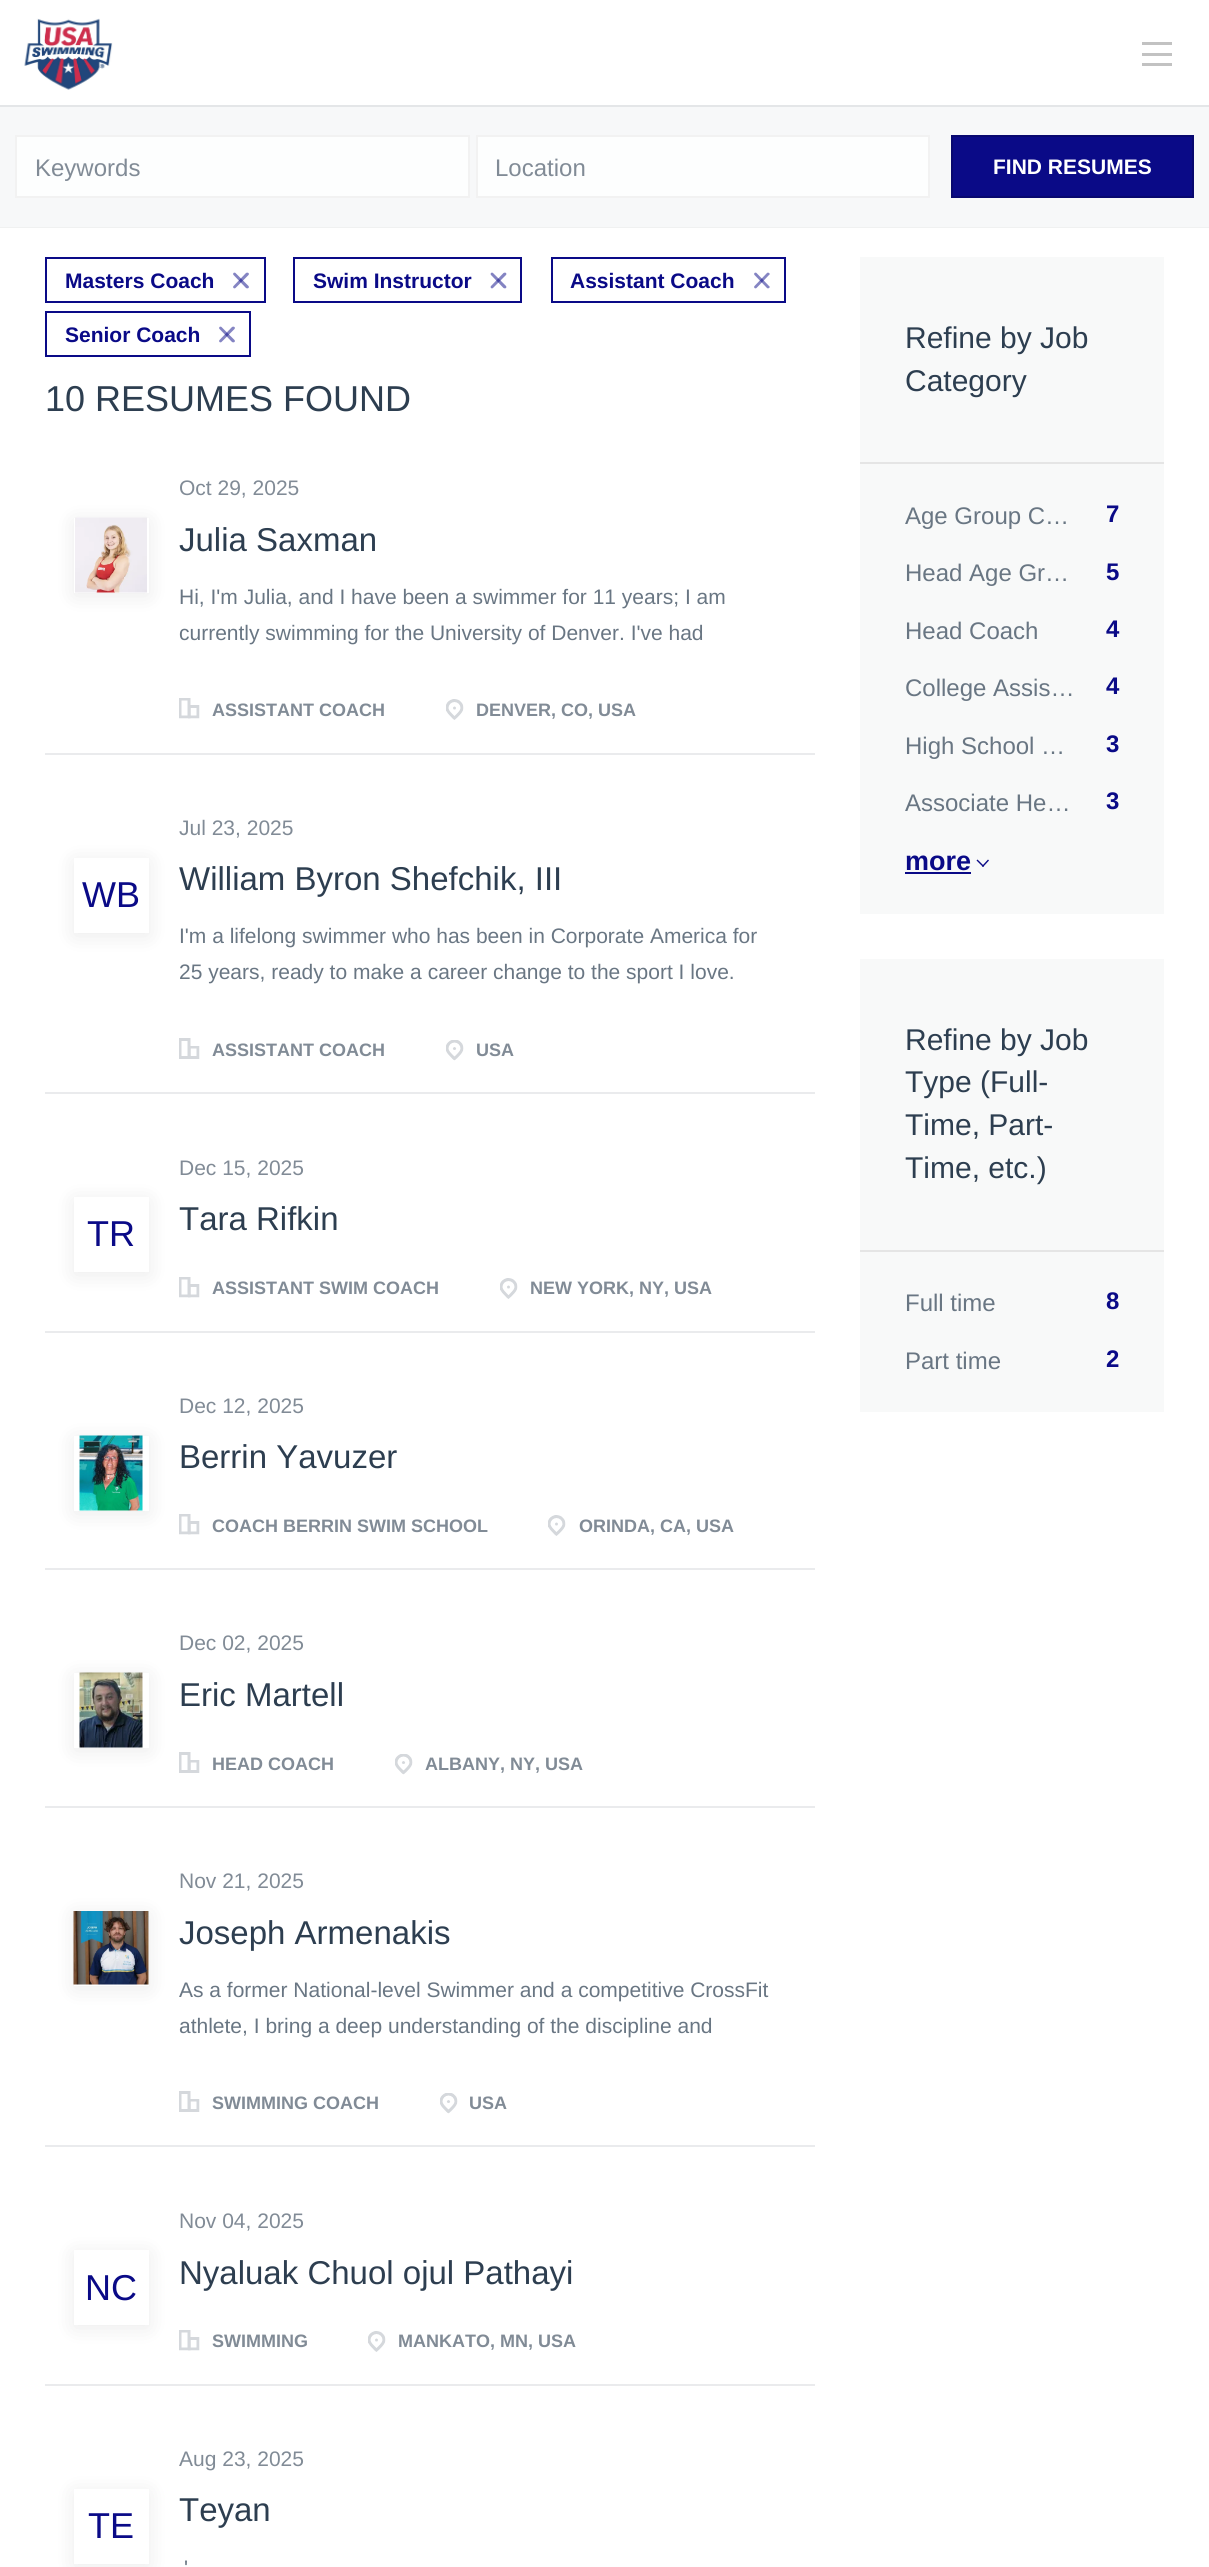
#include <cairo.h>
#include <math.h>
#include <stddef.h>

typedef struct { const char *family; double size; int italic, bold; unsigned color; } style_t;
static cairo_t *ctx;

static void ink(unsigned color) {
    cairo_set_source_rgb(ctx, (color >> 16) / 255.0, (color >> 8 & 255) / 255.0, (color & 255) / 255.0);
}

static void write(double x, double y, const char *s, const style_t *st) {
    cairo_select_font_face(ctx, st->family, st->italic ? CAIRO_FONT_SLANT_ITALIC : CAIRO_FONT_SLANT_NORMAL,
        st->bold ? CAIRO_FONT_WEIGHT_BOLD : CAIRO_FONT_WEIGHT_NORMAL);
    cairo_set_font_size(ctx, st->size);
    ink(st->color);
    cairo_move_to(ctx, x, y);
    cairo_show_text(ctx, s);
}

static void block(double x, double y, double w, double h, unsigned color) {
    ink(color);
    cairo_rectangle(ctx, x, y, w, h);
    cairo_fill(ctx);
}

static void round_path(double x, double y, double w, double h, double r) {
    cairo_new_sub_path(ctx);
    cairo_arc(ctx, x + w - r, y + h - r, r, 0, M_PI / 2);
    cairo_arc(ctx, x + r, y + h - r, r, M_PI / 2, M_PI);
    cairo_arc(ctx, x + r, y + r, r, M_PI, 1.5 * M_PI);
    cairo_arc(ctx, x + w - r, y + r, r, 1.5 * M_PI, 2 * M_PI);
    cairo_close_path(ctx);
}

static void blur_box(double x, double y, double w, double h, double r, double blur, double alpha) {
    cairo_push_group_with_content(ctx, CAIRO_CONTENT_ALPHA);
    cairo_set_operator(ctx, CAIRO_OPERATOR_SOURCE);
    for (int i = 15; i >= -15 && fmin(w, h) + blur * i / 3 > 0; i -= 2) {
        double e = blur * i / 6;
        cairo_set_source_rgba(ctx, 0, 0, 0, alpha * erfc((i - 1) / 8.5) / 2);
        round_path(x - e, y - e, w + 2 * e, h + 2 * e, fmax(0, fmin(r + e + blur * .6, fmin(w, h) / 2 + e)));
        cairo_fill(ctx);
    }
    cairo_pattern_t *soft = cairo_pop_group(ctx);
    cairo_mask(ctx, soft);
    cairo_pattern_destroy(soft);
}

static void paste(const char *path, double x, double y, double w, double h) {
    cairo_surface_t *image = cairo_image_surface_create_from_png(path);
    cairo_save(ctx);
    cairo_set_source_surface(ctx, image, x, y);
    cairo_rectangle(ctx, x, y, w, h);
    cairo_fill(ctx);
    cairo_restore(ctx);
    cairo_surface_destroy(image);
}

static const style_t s1 = {"Liberation Sans", 24, 0, 0, 0x818b96};
static const style_t s2 = {"Liberation Sans", 21, 0, 1, 0xffffff};
static const style_t s3 = {"Liberation Sans", 21, 0, 1, 0x0a0a87};
static const style_t s4 = {"Liberation Sans", 36, 0, 0, 0x2d3e50};
static const style_t s5 = {"Liberation Sans", 21, 0, 0, 0x818b96};
static const style_t s6 = {"Liberation Sans", 33, 0, 0, 0x2d3e50};
static const style_t s7 = {"Liberation Sans", 21, 0, 0, 0x697683};
static const style_t s8 = {"Liberation Sans", 18, 0, 1, 0x818b96};
static const style_t s9 = {"Liberation Sans", 36, 0, 0, 0x0a0a87};
static const style_t s10 = {"Liberation Sans", 30, 0, 0, 0x2d3e50};
static const style_t s11 = {"Liberation Sans", 24, 0, 0, 0x697683};
static const style_t s12 = {"Liberation Sans", 24, 0, 1, 0x0a0a87};
static const style_t s13 = {"Liberation Sans", 27, 0, 1, 0x0a0a87};

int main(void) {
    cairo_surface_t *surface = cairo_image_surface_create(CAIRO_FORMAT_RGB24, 1209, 2567);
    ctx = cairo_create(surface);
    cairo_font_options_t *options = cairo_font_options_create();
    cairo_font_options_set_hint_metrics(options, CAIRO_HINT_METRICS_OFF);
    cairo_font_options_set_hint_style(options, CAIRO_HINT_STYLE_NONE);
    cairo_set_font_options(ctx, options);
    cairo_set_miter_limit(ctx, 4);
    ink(0xffffff);
    cairo_paint(ctx);
    block(0, 105, 1209, 2, 0xe4e6e8);
    paste("pic1.png", 24, 18, 89, 72);
    block(1142, 53, 30, 3, 0xc2c2c2);
    block(1142, 42, 30, 3, 0xc2c2c2);
    block(1142, 63, 30, 3, 0xc2c2c2);
    block(0, 227, 1209, 1, 0xf0f1f1);
    block(0, 107, 1209, 120, 0xf7f8f9);
    ink(0xfdfefe);
    cairo_rectangle(ctx, 16, 136, 453, 61);
    cairo_fill_preserve(ctx);
    ink(0xf2f2f2);
    cairo_stroke(ctx);
    write(35, 176, "Keywords", &s1);
    ink(0xfdfefe);
    cairo_rectangle(ctx, 477, 136, 452, 61);
    cairo_fill_preserve(ctx);
    ink(0xf2f2f2);
    cairo_stroke(ctx);
    write(495, 176, "Location", &s1);
    ink(0x0a0a87);
    cairo_rectangle(ctx, 952, 136, 241, 61);
    cairo_fill_preserve(ctx);
    ink(0x08086f);
    cairo_stroke(ctx);
    write(993, 174, "FIND RESUMES", &s2);
    cairo_rectangle(ctx, 46, 258, 219, 44);
    ink(0x0a0a87);
    cairo_stroke(ctx);
    write(65, 288, "Masters Coach", &s3);
    ink(0x8585c3);
    cairo_new_path(ctx);
    cairo_move_to(ctx, 233.5, 286);
    cairo_line_to(ctx, 246, 273);
    cairo_curve_to(ctx, 247, 272.5, 247.5, 272.5, 248.5, 273);
    cairo_curve_to(ctx, 249, 273.5, 249, 274.5, 248.5, 275);
    cairo_line_to(ctx, 235.5, 288);
    cairo_curve_to(ctx, 235, 288.5, 234, 288.5, 233.5, 288);
    cairo_curve_to(ctx, 233, 287.5, 233, 286.5, 233.5, 286);
    cairo_close_path(ctx);
    cairo_fill(ctx);
    cairo_set_source_rgba(ctx, 0.039, 0.039, 0.529, 0.5);
    cairo_new_path(ctx);
    cairo_move_to(ctx, 235.5, 273);
    cairo_line_to(ctx, 248.5, 286);
    cairo_curve_to(ctx, 249, 286.5, 249, 287.5, 248.5, 288);
    cairo_curve_to(ctx, 247.5, 288.5, 247, 288.5, 246, 288);
    cairo_line_to(ctx, 233.5, 275);
    cairo_curve_to(ctx, 233, 274.5, 233, 273.5, 233.5, 273);
    cairo_curve_to(ctx, 234, 272.5, 235, 272.5, 235.5, 273);
    cairo_close_path(ctx);
    cairo_fill(ctx);
    cairo_rectangle(ctx, 294, 258, 227, 44);
    ink(0x0a0a87);
    cairo_stroke(ctx);
    write(313, 288, "Swim Instructor", &s3);
    ink(0x8585c3);
    cairo_new_path(ctx);
    cairo_move_to(ctx, 491, 286);
    cairo_line_to(ctx, 503.5, 273);
    cairo_curve_to(ctx, 504.5, 272.5, 505.5, 272.5, 506, 273);
    cairo_curve_to(ctx, 506.5, 273.5, 506.5, 274.5, 506, 275);
    cairo_line_to(ctx, 493, 288);
    cairo_curve_to(ctx, 492.5, 288.5, 491.5, 288.5, 491, 288);
    cairo_curve_to(ctx, 490.5, 287.5, 490.5, 286.5, 491, 286);
    cairo_close_path(ctx);
    cairo_fill(ctx);
    cairo_set_source_rgba(ctx, 0.039, 0.039, 0.529, 0.5);
    cairo_new_path(ctx);
    cairo_move_to(ctx, 493, 273);
    cairo_line_to(ctx, 506, 286);
    cairo_curve_to(ctx, 506.5, 286.5, 506.5, 287.5, 506, 288);
    cairo_curve_to(ctx, 505.5, 288.5, 504.5, 288.5, 503.5, 288);
    cairo_line_to(ctx, 491, 275);
    cairo_curve_to(ctx, 490.5, 274.5, 490.5, 273.5, 491, 273);
    cairo_curve_to(ctx, 491.5, 272.5, 492.5, 272.5, 493, 273);
    cairo_close_path(ctx);
    cairo_fill(ctx);
    cairo_rectangle(ctx, 552, 258, 233, 44);
    ink(0x0a0a87);
    cairo_stroke(ctx);
    write(570, 288, "Assistant Coach", &s3);
    ink(0x8585c3);
    cairo_new_path(ctx);
    cairo_move_to(ctx, 754.5, 286);
    cairo_line_to(ctx, 767, 273);
    cairo_curve_to(ctx, 767.5, 272.5, 768.5, 272.5, 769, 273);
    cairo_curve_to(ctx, 770, 273.5, 770, 274.5, 769, 275);
    cairo_line_to(ctx, 756.5, 288);
    cairo_curve_to(ctx, 756, 288.5, 755, 288.5, 754.5, 288);
    cairo_curve_to(ctx, 754, 287.5, 754, 286.5, 754.5, 286);
    cairo_close_path(ctx);
    cairo_fill(ctx);
    cairo_set_source_rgba(ctx, 0.039, 0.039, 0.529, 0.5);
    cairo_new_path(ctx);
    cairo_move_to(ctx, 756.5, 273);
    cairo_line_to(ctx, 769, 286);
    cairo_curve_to(ctx, 770, 286.5, 770, 287.5, 769, 288);
    cairo_curve_to(ctx, 768.5, 288.5, 767.5, 288.5, 767, 288);
    cairo_line_to(ctx, 754.5, 275);
    cairo_curve_to(ctx, 754, 274.5, 754, 273.5, 754.5, 273);
    cairo_curve_to(ctx, 755, 272.5, 756, 272.5, 756.5, 273);
    cairo_close_path(ctx);
    cairo_fill(ctx);
    cairo_rectangle(ctx, 46, 312, 204, 44);
    ink(0x0a0a87);
    cairo_stroke(ctx);
    write(65, 342, "Senior Coach", &s3);
    ink(0x8585c3);
    cairo_new_path(ctx);
    cairo_move_to(ctx, 219.5, 340);
    cairo_line_to(ctx, 232, 327);
    cairo_curve_to(ctx, 233, 326.5, 233.5, 326.5, 234.5, 327);
    cairo_curve_to(ctx, 235, 327.5, 235, 328.5, 234.5, 329);
    cairo_line_to(ctx, 221.5, 342);
    cairo_curve_to(ctx, 221, 342.5, 220, 342.5, 219.5, 342);
    cairo_curve_to(ctx, 219, 341.5, 219, 340.5, 219.5, 340);
    cairo_close_path(ctx);
    cairo_fill(ctx);
    cairo_set_source_rgba(ctx, 0.039, 0.039, 0.529, 0.5);
    cairo_new_path(ctx);
    cairo_move_to(ctx, 221.5, 327);
    cairo_line_to(ctx, 234.5, 340);
    cairo_curve_to(ctx, 235, 340.5, 235, 341.5, 234.5, 342);
    cairo_curve_to(ctx, 233.5, 342.5, 233, 342.5, 232, 342);
    cairo_line_to(ctx, 219.5, 329);
    cairo_curve_to(ctx, 219, 328.5, 219, 327.5, 219.5, 327);
    cairo_curve_to(ctx, 220, 326.5, 221, 326.5, 221.5, 327);
    cairo_close_path(ctx);
    cairo_fill(ctx);
    write(45, 411, "10 RESUMES FOUND", &s4);
    block(45, 753, 770, 2, 0xeaebed);
    ink(0x000000);
    blur_box(74, 521, 75, 75, 0, 10.5, 0.08);
    block(74, 518, 75, 75, 0xffffff);
    paste("pic2.png", 75, 517, 72, 76);
    write(179, 495, "Oct 29, 2025", &s5);
    write(179, 551, "Julia Saxman", &s6);
    write(179, 604, "Hi, I'm Julia, and I have been a swimmer for 11 years; I am", &s7);
    write(179, 640, "currently swimming for the University of Denver. I've had", &s7);
    paste("pic3.png", 179, 698, 21, 21);
    write(212, 716, "ASSISTANT COACH", &s8);
    paste("pic4.png", 446, 699, 18, 21);
    write(476, 716, "DENVER, CO, USA", &s8);
    block(45, 1092, 770, 2, 0xeaebed);
    ink(0x000000);
    blur_box(74, 861, 75, 75, 0, 10.5, 0.08);
    block(74, 858, 75, 75, 0xffffff);
    write(82, 907, "WB", &s9);
    write(179, 835, "Jul 23, 2025", &s5);
    write(179, 890, "William Byron Shefchik, III", &s6);
    write(179, 943, "I'm a lifelong swimmer who has been in Corporate America for", &s7);
    write(179, 979, "25 years, ready to make a career change to the sport I love.", &s7);
    paste("pic5.png", 179, 1038, 21, 21);
    write(212, 1056, "ASSISTANT COACH", &s8);
    paste("pic6.png", 446, 1040, 18, 21);
    write(476, 1056, "USA", &s8);
    block(45, 1331, 770, 2, 0xeaebed);
    ink(0x000000);
    blur_box(74, 1200, 75, 75, 0, 10.5, 0.08);
    block(74, 1197, 75, 75, 0xffffff);
    write(87, 1246, "TR", &s9);
    write(179, 1175, "Dec 15, 2025", &s5);
    write(179, 1230, "Tara Rifkin", &s6);
    paste("pic3.png", 179, 1277, 21, 21);
    write(212, 1294, "ASSISTANT SWIM COACH", &s8);
    paste("pic7.png", 500, 1278, 18, 21);
    write(530, 1294, "NEW YORK, NY, USA", &s8);
    block(45, 1568, 770, 2, 0xeaebed);
    ink(0x000000);
    blur_box(74, 1439, 75, 75, 0, 10.5, 0.08);
    block(74, 1436, 75, 75, 0xffffff);
    paste("pic8.png", 79, 1435, 64, 76);
    write(179, 1413, "Dec 12, 2025", &s5);
    write(179, 1468, "Berrin Yavuzer", &s6);
    paste("pic3.png", 179, 1514, 21, 21);
    write(212, 1532, "COACH BERRIN SWIM SCHOOL", &s8);
    paste("pic9.png", 548, 1515, 18, 21);
    write(579, 1532, "ORINDA, CA, USA", &s8);
    block(45, 1806, 770, 2, 0xeaebed);
    ink(0x000000);
    blur_box(74, 1676, 75, 75, 0, 10.5, 0.08);
    block(74, 1673, 75, 75, 0xffffff);
    paste("pic10.png", 79, 1672, 64, 76);
    write(179, 1650, "Dec 02, 2025", &s5);
    write(179, 1706, "Eric Martell", &s6);
    paste("pic5.png", 179, 1752, 21, 21);
    write(212, 1770, "HEAD COACH", &s8);
    paste("pic6.png", 395, 1754, 18, 21);
    write(425, 1770, "ALBANY, NY, USA", &s8);
    block(45, 2145, 770, 2, 0xeaebed);
    ink(0x000000);
    blur_box(74, 1914, 75, 75, 0, 10.5, 0.08);
    block(74, 1911, 75, 75, 0xffffff);
    paste("pic11.png", 73, 1911, 76, 74);
    write(179, 1888, "Nov 21, 2025", &s5);
    write(179, 1944, "Joseph Armenakis", &s6);
    write(179, 1997, "As a former National-level Swimmer and a competitive CrossFit", &s7);
    write(179, 2033, "athlete, I bring a deep understanding of the discipline and", &s7);
    paste("pic5.png", 179, 2091, 21, 21);
    write(212, 2109, "SWIMMING COACH", &s8);
    paste("pic6.png", 440, 2093, 18, 21);
    write(469, 2109, "USA", &s8);
    block(45, 2384, 770, 2, 0xeaebed);
    ink(0x000000);
    blur_box(74, 2253, 75, 75, 0, 10.5, 0.08);
    block(74, 2250, 75, 75, 0xffffff);
    write(85, 2300, "NC", &s9);
    write(179, 2228, "Nov 04, 2025", &s5);
    write(179, 2284, "Nyaluak Chuol ojul Pathayi", &s6);
    paste("pic3.png", 179, 2330, 21, 21);
    write(212, 2347, "SWIMMING", &s8);
    paste("pic4.png", 368, 2331, 18, 21);
    write(398, 2347, "MANKATO, MN, USA", &s8);
    ink(0x000000);
    blur_box(74, 2492, 75, 75, 0, 10.5, 0.08);
    block(74, 2489, 75, 75, 0xffffff);
    write(88, 2538, "TE", &s9);
    write(179, 2466, "Aug 23, 2025", &s5);
    write(179, 2521, "Teyan", &s6);
    write(184, 2575, "'", &s7);
    block(860, 257, 304, 657, 0xf8f9f9);
    block(860, 462, 304, 2, 0xe5e5e5);
    write(905, 348, "Refine by Job", &s10);
    write(905, 391, "Category", &s10);
    write(905, 524, "Age Group C…", &s11);
    write(1106, 522, "7", &s12);
    write(905, 581, "Head Age Gr…", &s11);
    write(1106, 580, "5", &s12);
    write(905, 639, "Head Coach", &s11);
    write(1106, 637, "4", &s12);
    write(905, 696, "College Assis…", &s11);
    write(1106, 694, "4", &s12);
    write(905, 754, "High School …", &s11);
    write(1106, 752, "3", &s12);
    write(905, 811, "Associate He…", &s11);
    write(1106, 809, "3", &s12);
    write(905, 870, "more", &s13);
    block(905, 872, 66, 2, 0x0a0a87);
    cairo_new_path(ctx);
    cairo_move_to(ctx, 989, 860.5);
    cairo_line_to(ctx, 983, 867);
    cairo_line_to(ctx, 982, 866);
    cairo_line_to(ctx, 988, 859.5);
    cairo_close_path(ctx);
    cairo_fill(ctx);
    cairo_new_path(ctx);
    cairo_move_to(ctx, 984, 866);
    cairo_line_to(ctx, 983, 867);
    cairo_line_to(ctx, 976.5, 860.5);
    cairo_line_to(ctx, 977.5, 859.5);
    cairo_close_path(ctx);
    cairo_fill(ctx);
    block(860, 959, 304, 453, 0xf8f9f9);
    block(860, 1250, 304, 2, 0xe5e5e5);
    write(905, 1050, "Refine by Job", &s10);
    write(905, 1092, "Type (Full-", &s10);
    write(905, 1135, "Time, Part-", &s10);
    write(905, 1178, "Time, etc.)", &s10);
    write(905, 1311, "Full time", &s11);
    write(1106, 1309, "8", &s12);
    write(905, 1369, "Part time", &s11);
    write(1106, 1367, "2", &s12);
    cairo_surface_write_to_png(surface, "screenshot.png");
    cairo_font_options_destroy(options);
    cairo_destroy(ctx);
    cairo_surface_destroy(surface);
    return 0;
}
